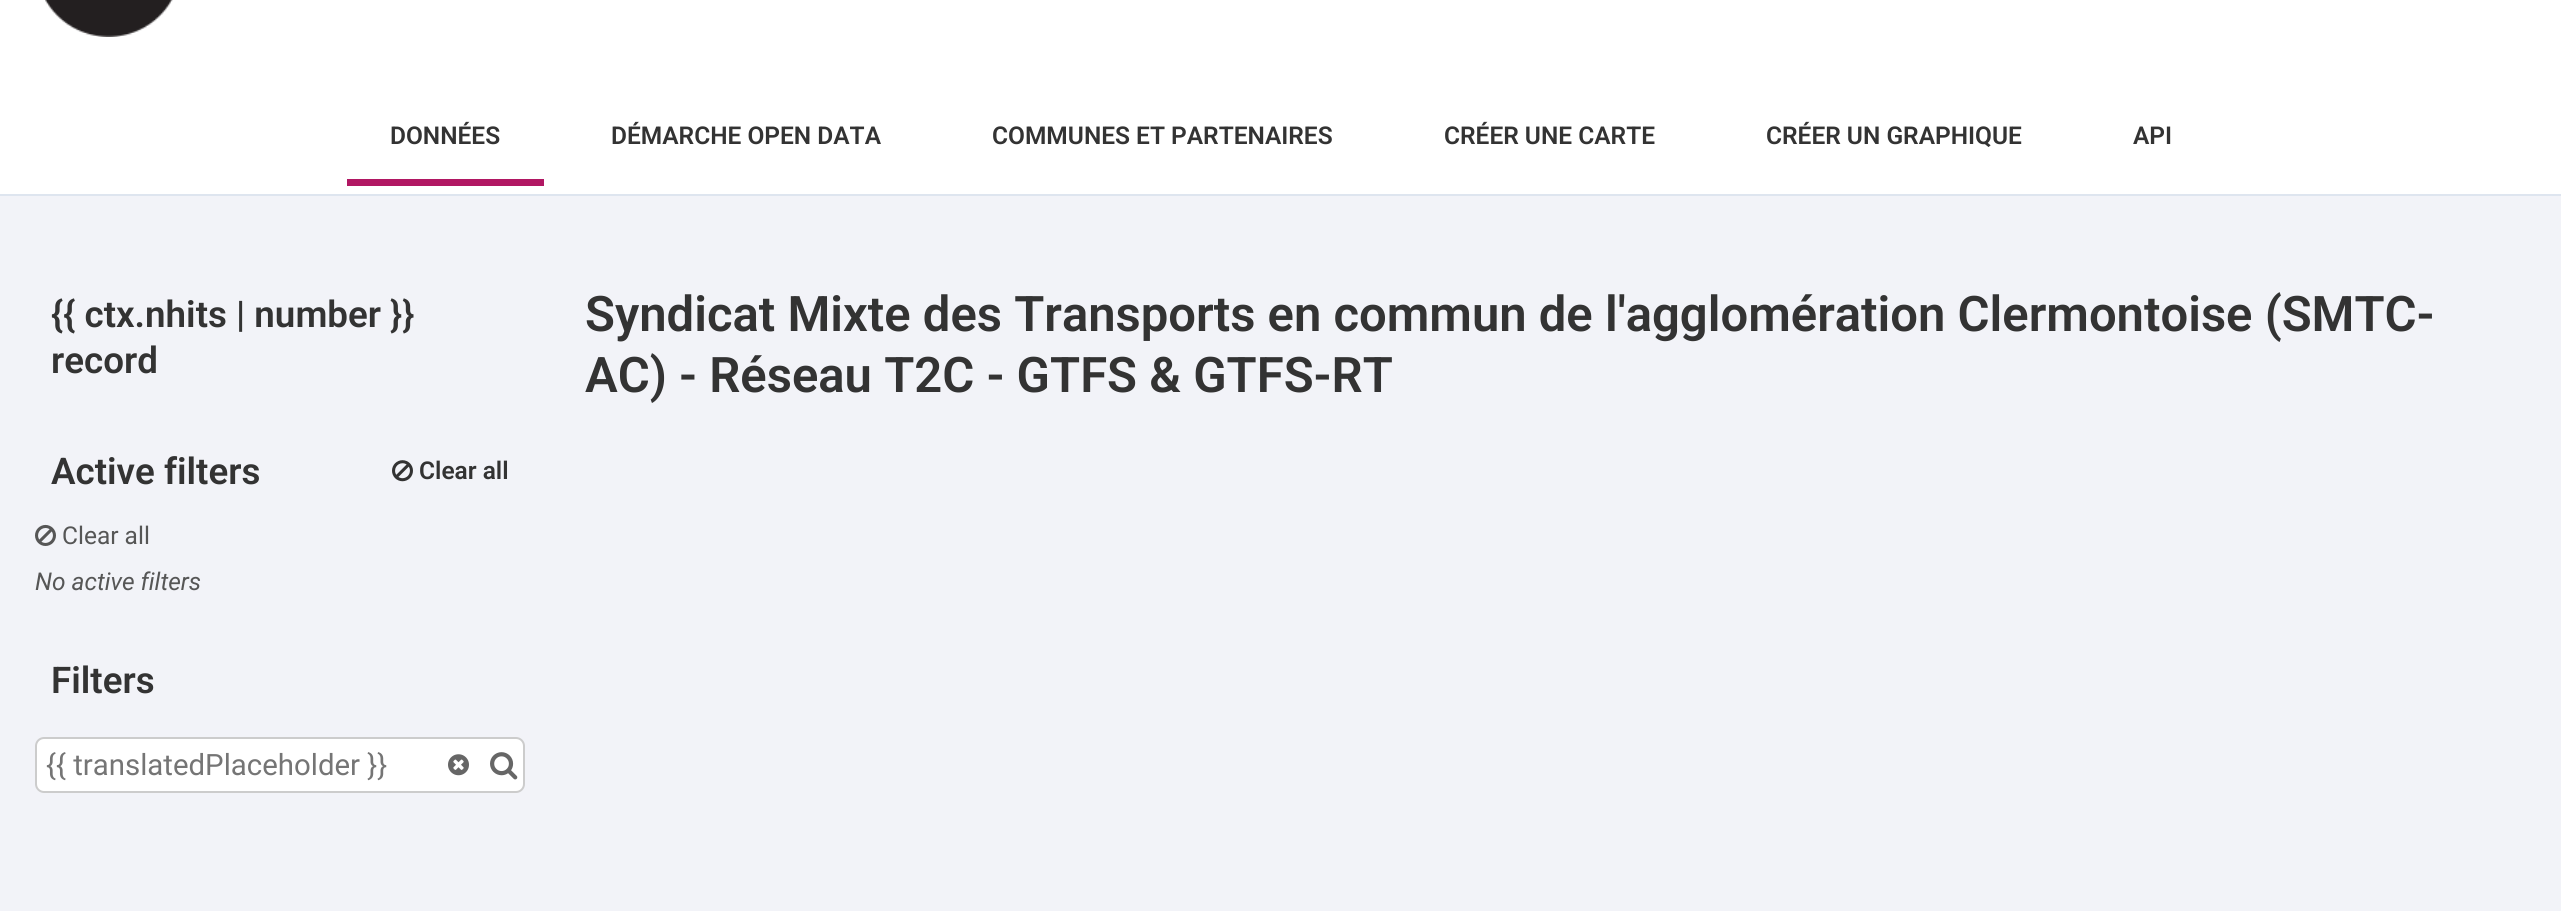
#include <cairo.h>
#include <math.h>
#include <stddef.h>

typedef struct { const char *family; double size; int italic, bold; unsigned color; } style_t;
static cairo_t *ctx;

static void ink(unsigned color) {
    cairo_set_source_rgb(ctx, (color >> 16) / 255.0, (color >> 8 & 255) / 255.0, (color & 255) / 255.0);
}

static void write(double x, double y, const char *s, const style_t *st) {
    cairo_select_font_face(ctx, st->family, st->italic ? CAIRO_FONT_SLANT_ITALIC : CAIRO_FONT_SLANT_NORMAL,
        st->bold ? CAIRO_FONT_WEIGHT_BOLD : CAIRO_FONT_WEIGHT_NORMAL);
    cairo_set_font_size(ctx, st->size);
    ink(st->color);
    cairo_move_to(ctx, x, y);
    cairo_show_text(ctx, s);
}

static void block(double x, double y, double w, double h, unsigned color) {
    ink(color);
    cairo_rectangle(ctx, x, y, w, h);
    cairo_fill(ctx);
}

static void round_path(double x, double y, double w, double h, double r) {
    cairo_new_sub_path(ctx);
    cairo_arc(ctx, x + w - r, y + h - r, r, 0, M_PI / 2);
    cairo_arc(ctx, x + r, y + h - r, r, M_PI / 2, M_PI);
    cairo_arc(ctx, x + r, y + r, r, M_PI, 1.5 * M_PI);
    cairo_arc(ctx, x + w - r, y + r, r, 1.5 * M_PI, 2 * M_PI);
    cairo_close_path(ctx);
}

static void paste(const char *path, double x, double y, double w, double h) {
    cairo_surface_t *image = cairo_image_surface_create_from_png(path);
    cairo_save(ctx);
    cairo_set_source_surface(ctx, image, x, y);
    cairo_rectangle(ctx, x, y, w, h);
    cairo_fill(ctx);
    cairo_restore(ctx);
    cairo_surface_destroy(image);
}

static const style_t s1 = {"Roboto SemiBold", 24.5, 0, 0, 0x333333};
static const style_t s2 = {"Roboto SemiBold", 36.75, 0, 0, 0x333333};
static const style_t s3 = {"Roboto", 24.5, 0, 0, 0x565656};
static const style_t s4 = {"Roboto", 24.5, 1, 0, 0x565656};
static const style_t s5 = {"Roboto", 29.4, 0, 0, 0x757575};
static const style_t s6 = {"Roboto SemiBold", 49, 0, 0, 0x333333};

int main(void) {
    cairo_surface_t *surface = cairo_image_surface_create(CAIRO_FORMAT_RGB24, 2561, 911);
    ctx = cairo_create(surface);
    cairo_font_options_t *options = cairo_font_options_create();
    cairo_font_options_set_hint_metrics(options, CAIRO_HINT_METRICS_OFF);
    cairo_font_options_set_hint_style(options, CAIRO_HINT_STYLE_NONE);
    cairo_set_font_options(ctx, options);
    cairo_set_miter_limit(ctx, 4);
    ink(0xf2f3f8);
    cairo_paint(ctx);
    block(0, 0, 2561, 194, 0xffffff);
    block(0, 194, 2561, 2, 0xdee5ef);
    paste("pic1.png", 45, 0, 128, 37);
    block(347, 179, 197, 7, 0xb11763);
    write(390, 144, "DONNÉES", &s1);
    write(611, 144, "DÉMARCHE OPEN DATA", &s1);
    write(992, 144, "COMMUNES ET PARTENAIRES", &s1);
    write(1444, 144, "CRÉER UNE CARTE", &s1);
    write(1766, 144, "CRÉER UN GRAPHIQUE", &s1);
    write(2133, 144, "API", &s1);
    write(51, 327, "{{ ctx.nhits | number }}", &s2);
    write(51, 373, "record", &s2);
    write(51, 484, "Active filters", &s2);
    paste("pic2.png", 392, 460, 21, 22);
    write(419, 479, "Clear all", &s1);
    paste("pic3.png", 35, 524, 21, 22);
    write(62, 544, "Clear all", &s3);
    write(35, 590, "No active filters", &s4);
    write(51, 693, "Filters", &s2);
    ink(0xffffff);
    round_path(36, 738, 488, 54, 8);
    cairo_fill_preserve(ctx);
    ink(0xcccccc);
    cairo_stroke(ctx);
    write(46, 775, "{{ translatedPlaceholder }}", &s5);
    paste("pic4.png", 448, 754, 21, 22);
    paste("pic5.png", 490, 752, 28, 28);
    write(585, 331, "Syndicat Mixte des Transports en commun de l'agglomération Clermontoise (SMTC-", &s6);
    write(585, 392, "AC) - Réseau T2C - GTFS & GTFS-RT", &s6);
    cairo_surface_write_to_png(surface, "screenshot.png");
    cairo_font_options_destroy(options);
    cairo_destroy(ctx);
    cairo_surface_destroy(surface);
    return 0;
}
